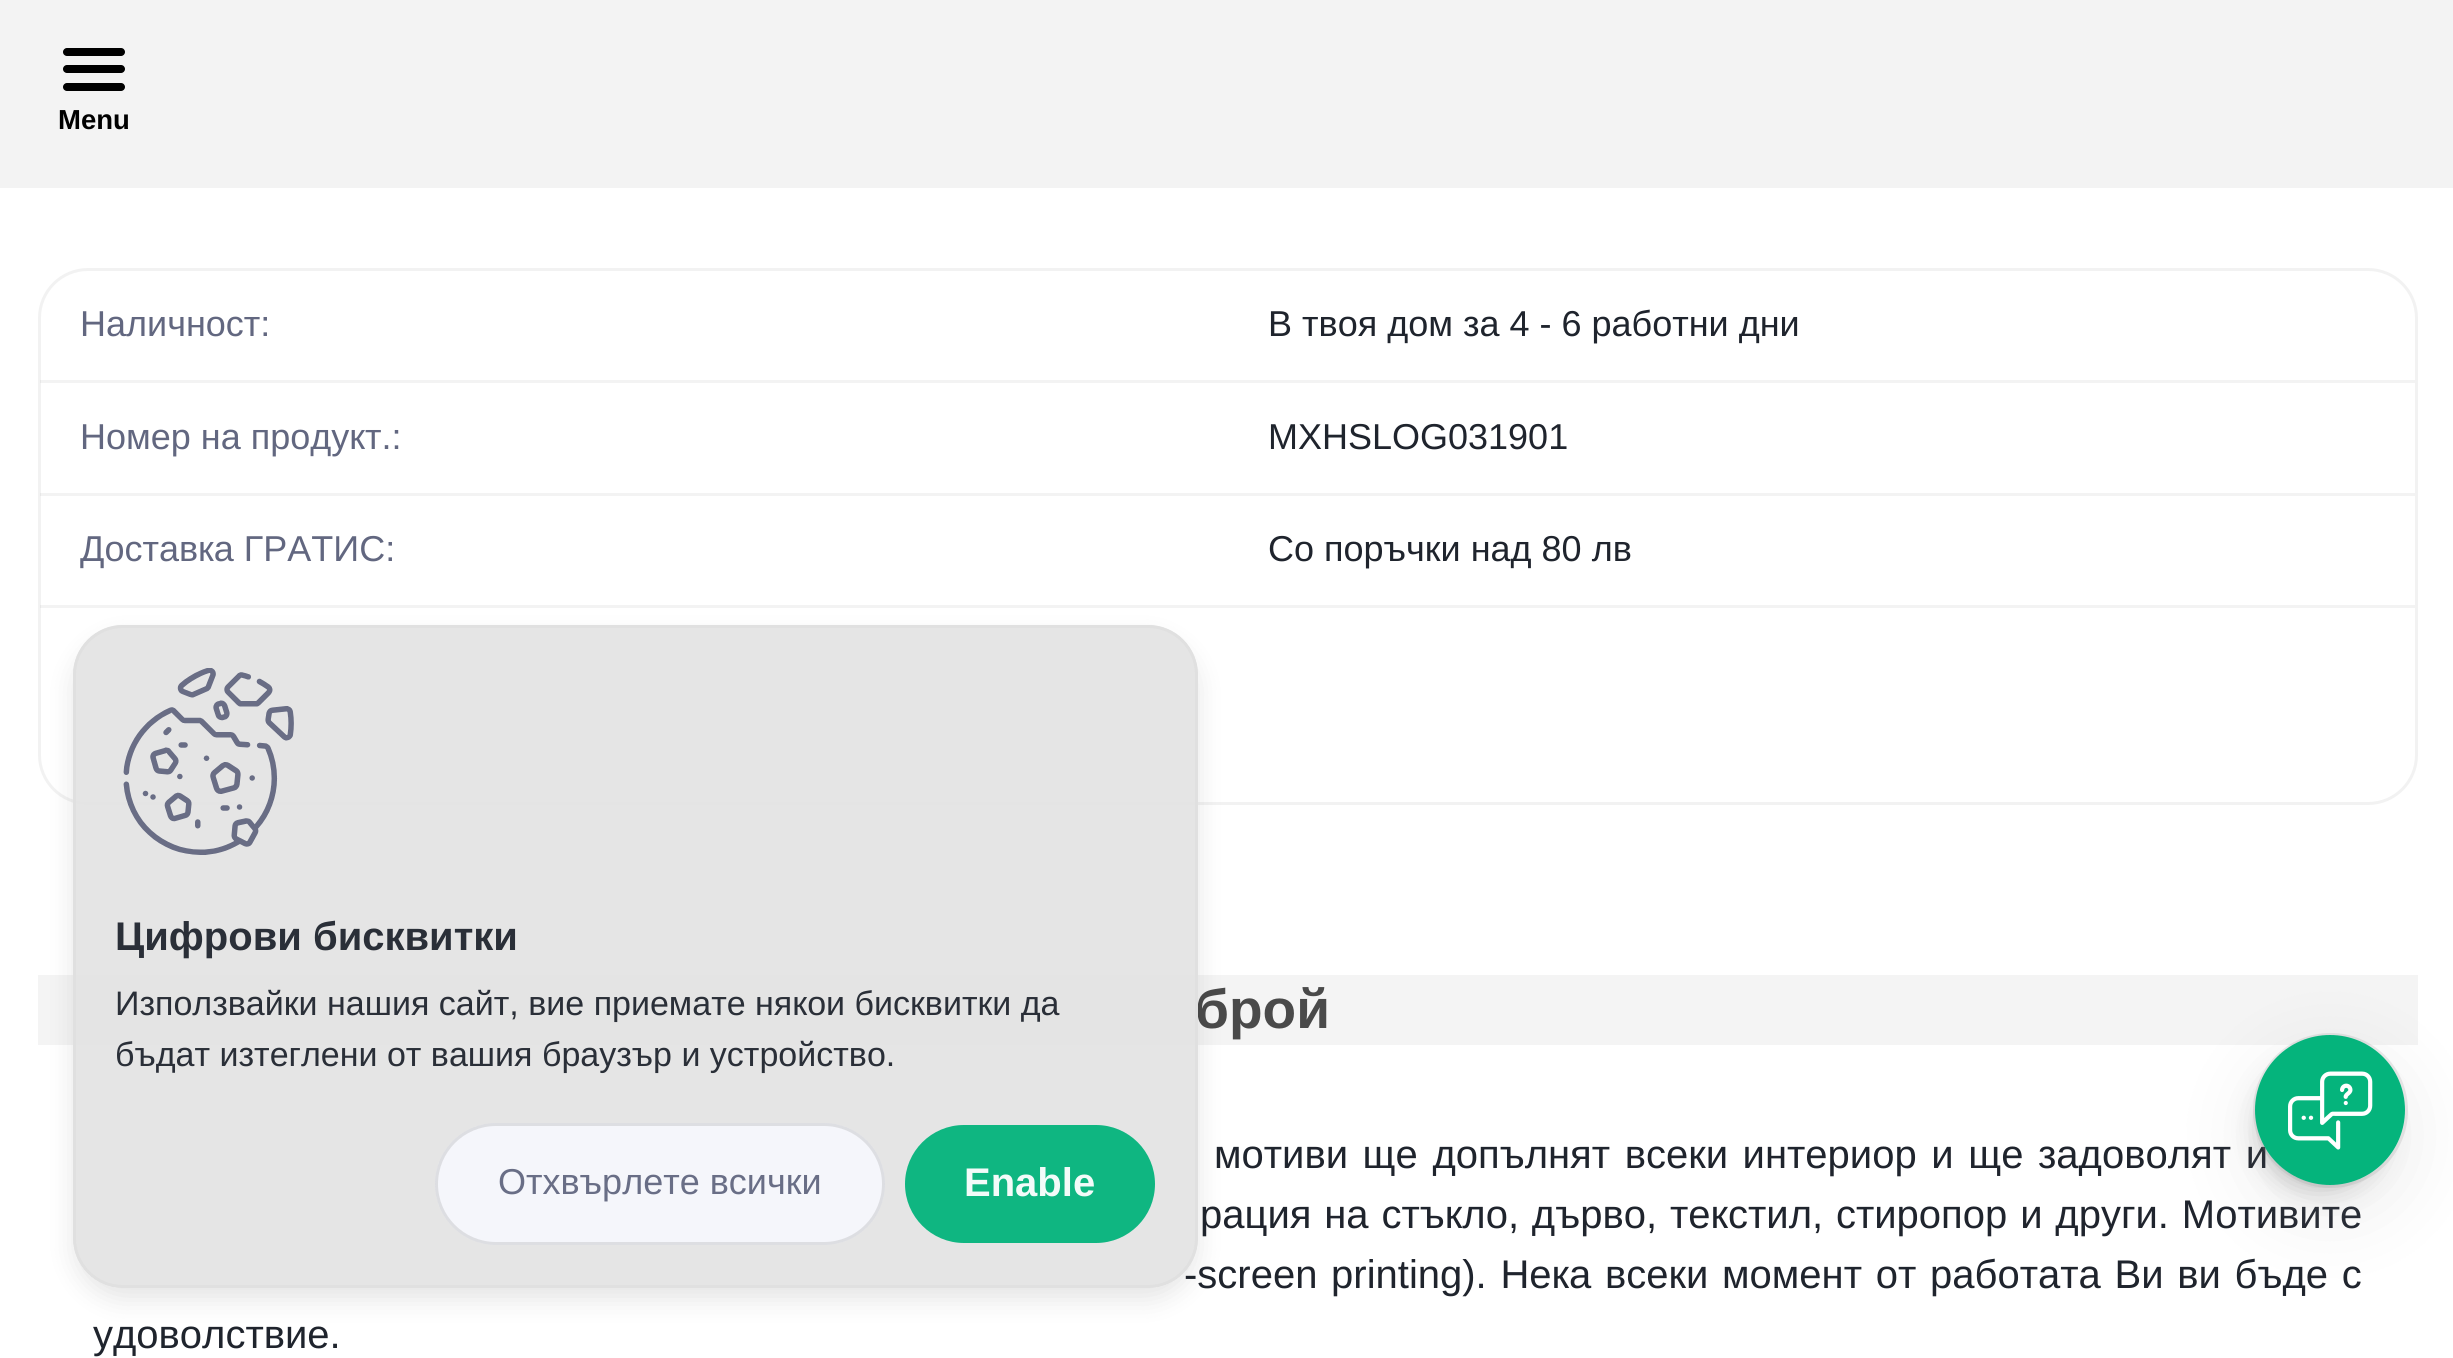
#include <cairo.h>
#include <math.h>
#include <stddef.h>

typedef struct { const char *family; double size; int italic, bold; unsigned color; } style_t;
static cairo_t *ctx;

static void ink(unsigned color) {
    cairo_set_source_rgb(ctx, (color >> 16) / 255.0, (color >> 8 & 255) / 255.0, (color & 255) / 255.0);
}

static void write(double x, double y, const char *s, const style_t *st) {
    cairo_select_font_face(ctx, st->family, st->italic ? CAIRO_FONT_SLANT_ITALIC : CAIRO_FONT_SLANT_NORMAL,
        st->bold ? CAIRO_FONT_WEIGHT_BOLD : CAIRO_FONT_WEIGHT_NORMAL);
    cairo_set_font_size(ctx, st->size);
    ink(st->color);
    cairo_move_to(ctx, x, y);
    cairo_show_text(ctx, s);
}

static void write_spaced(double x, double y, const char *s, double letter, double word) {
    cairo_move_to(ctx, x, y);
    while (*s) {
        char ch[5] = {0};
        int n = 0;
        do ch[n++] = *s++; while ((*s & 0xC0) == 0x80);
        cairo_show_text(ctx, ch);
        cairo_rel_move_to(ctx, letter + word * (*ch == ' '), 0);
    }
}

static void block(double x, double y, double w, double h, unsigned color) {
    ink(color);
    cairo_rectangle(ctx, x, y, w, h);
    cairo_fill(ctx);
}

static void round_path(double x, double y, double w, double h, double r) {
    cairo_new_sub_path(ctx);
    cairo_arc(ctx, x + w - r, y + h - r, r, 0, M_PI / 2);
    cairo_arc(ctx, x + r, y + h - r, r, M_PI / 2, M_PI);
    cairo_arc(ctx, x + r, y + r, r, M_PI, 1.5 * M_PI);
    cairo_arc(ctx, x + w - r, y + r, r, 1.5 * M_PI, 2 * M_PI);
    cairo_close_path(ctx);
}

static void blur_box(double x, double y, double w, double h, double r, double blur, double alpha) {
    cairo_push_group_with_content(ctx, CAIRO_CONTENT_ALPHA);
    cairo_set_operator(ctx, CAIRO_OPERATOR_SOURCE);
    for (int i = 15; i >= -15 && fmin(w, h) + blur * i / 3 > 0; i -= 2) {
        double e = blur * i / 6;
        cairo_set_source_rgba(ctx, 0, 0, 0, alpha * erfc((i - 1) / 8.5) / 2);
        round_path(x - e, y - e, w + 2 * e, h + 2 * e, fmax(0, fmin(r + e + blur * .6, fmin(w, h) / 2 + e)));
        cairo_fill(ctx);
    }
    cairo_pattern_t *soft = cairo_pop_group(ctx);
    cairo_mask(ctx, soft);
    cairo_pattern_destroy(soft);
}

static void paste(const char *path, double x, double y, double w, double h) {
    cairo_surface_t *image = cairo_image_surface_create_from_png(path);
    cairo_save(ctx);
    cairo_set_source_surface(ctx, image, x, y);
    cairo_rectangle(ctx, x, y, w, h);
    cairo_fill(ctx);
    cairo_restore(ctx);
    cairo_surface_destroy(image);
}

static const style_t s1 = {"Liberation Sans", 27.5, 0, 1, 0x000000};
static const style_t s2 = {"Liberation Sans", 36, 0, 0, 0x626780};
static const style_t s3 = {"Liberation Sans", 36, 0, 0, 0x1f242d};
static const style_t s4 = {"Liberation Sans", 55, 0, 1, 0x4a4a4a};
static const style_t s5 = {"Liberation Sans", 40, 0, 0, 0x1f242d};
static const style_t s6 = {"Liberation Sans", 40, 0, 1, 0x2a2f38};
static const style_t s7 = {"Liberation Sans", 34, 0, 0, 0x2a2f38};
static const style_t s8 = {"Liberation Sans", 36, 0, 0, 0x696e86};
static const style_t s9 = {"Liberation Sans", 40, 0, 1, 0xf3fbf9};

int main(void) {
    cairo_surface_t *surface = cairo_image_surface_create(CAIRO_FORMAT_RGB24, 2453, 1358);
    ctx = cairo_create(surface);
    cairo_font_options_t *options = cairo_font_options_create();
    cairo_font_options_set_hint_metrics(options, CAIRO_HINT_METRICS_OFF);
    cairo_font_options_set_hint_style(options, CAIRO_HINT_STYLE_NONE);
    cairo_set_font_options(ctx, options);
    cairo_set_miter_limit(ctx, 4);
    ink(0xffffff);
    cairo_paint(ctx);
    block(0, 0, 2453, 188, 0xf3f3f3);
    ink(0x000000);
    round_path(63, 48, 62, 8, 4);
    cairo_fill(ctx);
    round_path(63, 65, 62, 8, 4);
    cairo_fill(ctx);
    round_path(63, 83, 62, 8, 4);
    cairo_fill(ctx);
    write(58, 129, "Menu", &s1);
    round_path(39.5, 269.5, 2377, 534, 48.5);
    ink(0xf2f2f2);
    cairo_set_line_width(ctx, 3);
    cairo_stroke(ctx);
    cairo_set_source_rgba(ctx, 0, 0, 0, 0.05);
    cairo_rectangle(ctx, 40, 380, 2375, 3);
    cairo_fill(ctx);
    write(80, 336, "Наличност:", &s2);
    write(1268, 336, "В твоя дом за 4 - 6 работни дни", &s3);
    cairo_set_source_rgba(ctx, 0, 0, 0, 0.05);
    cairo_rectangle(ctx, 40, 493, 2375, 3);
    cairo_fill(ctx);
    write(80, 449, "Номер на продукт.:", &s2);
    write(1268, 449, "MXHSLOG031901", &s3);
    cairo_set_source_rgba(ctx, 0, 0, 0, 0.05);
    cairo_rectangle(ctx, 40, 605, 2375, 3);
    cairo_fill(ctx);
    write(80, 561, "Доставка ГРАТИС:", &s2);
    write(1268, 561, "Со поръчки над 80 лв", &s3);
    block(38, 975, 2380, 70, 0xf4f4f4);
    write(1195, 1028, "брой", &s4);
    cairo_select_font_face(ctx, "Liberation Sans", CAIRO_FONT_SLANT_NORMAL, CAIRO_FONT_WEIGHT_NORMAL);
    cairo_set_font_size(ctx, 40);
    ink(0x1f242d);
    write_spaced(1214, 1168, "мотиви ще допълнят всеки интериор и ще задоволят и", 0, 3.5);
    write_spaced(1200, 1228, "рация на стъкло, дърво, текстил, стиропор и други. Мотивите", 0, 1.75);
    write_spaced(1184, 1288, "-screen printing). Нека всеки момент от работата Ви ви бъде с", 0, 2.6);
    write(93, 1348, "удоволствие.", &s5);
    cairo_save(ctx);
    cairo_set_fill_rule(ctx, CAIRO_FILL_RULE_EVEN_ODD);
    cairo_new_path(ctx);
    cairo_move_to(ctx, 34, 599);
    cairo_line_to(ctx, 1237, 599);
    cairo_line_to(ctx, 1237, 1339);
    cairo_line_to(ctx, 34, 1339);
    cairo_close_path(ctx);
    cairo_move_to(ctx, 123, 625);
    cairo_line_to(ctx, 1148, 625);
    cairo_curve_to(ctx, 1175.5, 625, 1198, 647.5, 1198, 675);
    cairo_line_to(ctx, 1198, 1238);
    cairo_curve_to(ctx, 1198, 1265.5, 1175.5, 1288, 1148, 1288);
    cairo_line_to(ctx, 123, 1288);
    cairo_curve_to(ctx, 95.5, 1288, 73, 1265.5, 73, 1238);
    cairo_line_to(ctx, 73, 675);
    cairo_curve_to(ctx, 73, 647.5, 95.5, 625, 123, 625);
    cairo_close_path(ctx);
    cairo_clip(ctx);
    ink(0x000000);
    blur_box(73, 638, 1125, 662, 50, 12.5, 0.1);
    cairo_restore(ctx);
    cairo_set_source_rgba(ctx, 0.894, 0.894, 0.894, 0.95);
    round_path(73, 625, 1125, 663, 50);
    cairo_fill(ctx);
    round_path(74.5, 626.5, 1122, 660, 48.5);
    cairo_set_source_rgba(ctx, 0.878, 0.878, 0.878, 0.95);
    cairo_stroke(ctx);
    paste("pic1.png", 123, 668, 171, 187);
    write(115, 950, "Цифрови бисквитки", &s6);
    write(115, 1015, "Използвайки нашия сайт, вие приемате някои бисквитки да", &s7);
    write(115, 1066, "бъдат изтеглени от вашия браузър и устройство.", &s7);
    cairo_set_source_rgba(ctx, 0.965, 0.969, 0.988, 0.95);
    round_path(435, 1123, 450, 122, 61);
    cairo_fill(ctx);
    round_path(436.5, 1124.5, 447, 119, 59.5);
    cairo_set_source_rgba(ctx, 0, 0, 0, 0.1);
    cairo_stroke(ctx);
    write(498, 1194, "Отхвърлете всички", &s8);
    cairo_set_source_rgba(ctx, 0.02, 0.706, 0.486, 0.95);
    round_path(905, 1125, 250, 118, 59);
    cairo_fill(ctx);
    write(964, 1196, "Enable", &s9);
    ink(0x000000);
    blur_box(2258, 1065, 125, 125, 62.5, 12.5, 0.2);
    cairo_arc(ctx, 2330.5, 1110.5, 76, 0, 2 * M_PI);
    cairo_set_source_rgba(ctx, 0.588, 0.588, 0.588, 0.2);
    cairo_stroke(ctx);
    ink(0x969696);
    blur_box(2255, 1060, 150, 150, 75, 37.5, 0.2);
    ink(0x05b47c);
    cairo_arc(ctx, 2330, 1110, 75, 0, 2 * M_PI);
    cairo_fill(ctx);
    paste("pic2.png", 2288, 1071, 85, 79);
    cairo_surface_write_to_png(surface, "screenshot.png");
    cairo_font_options_destroy(options);
    cairo_destroy(ctx);
    cairo_surface_destroy(surface);
    return 0;
}
